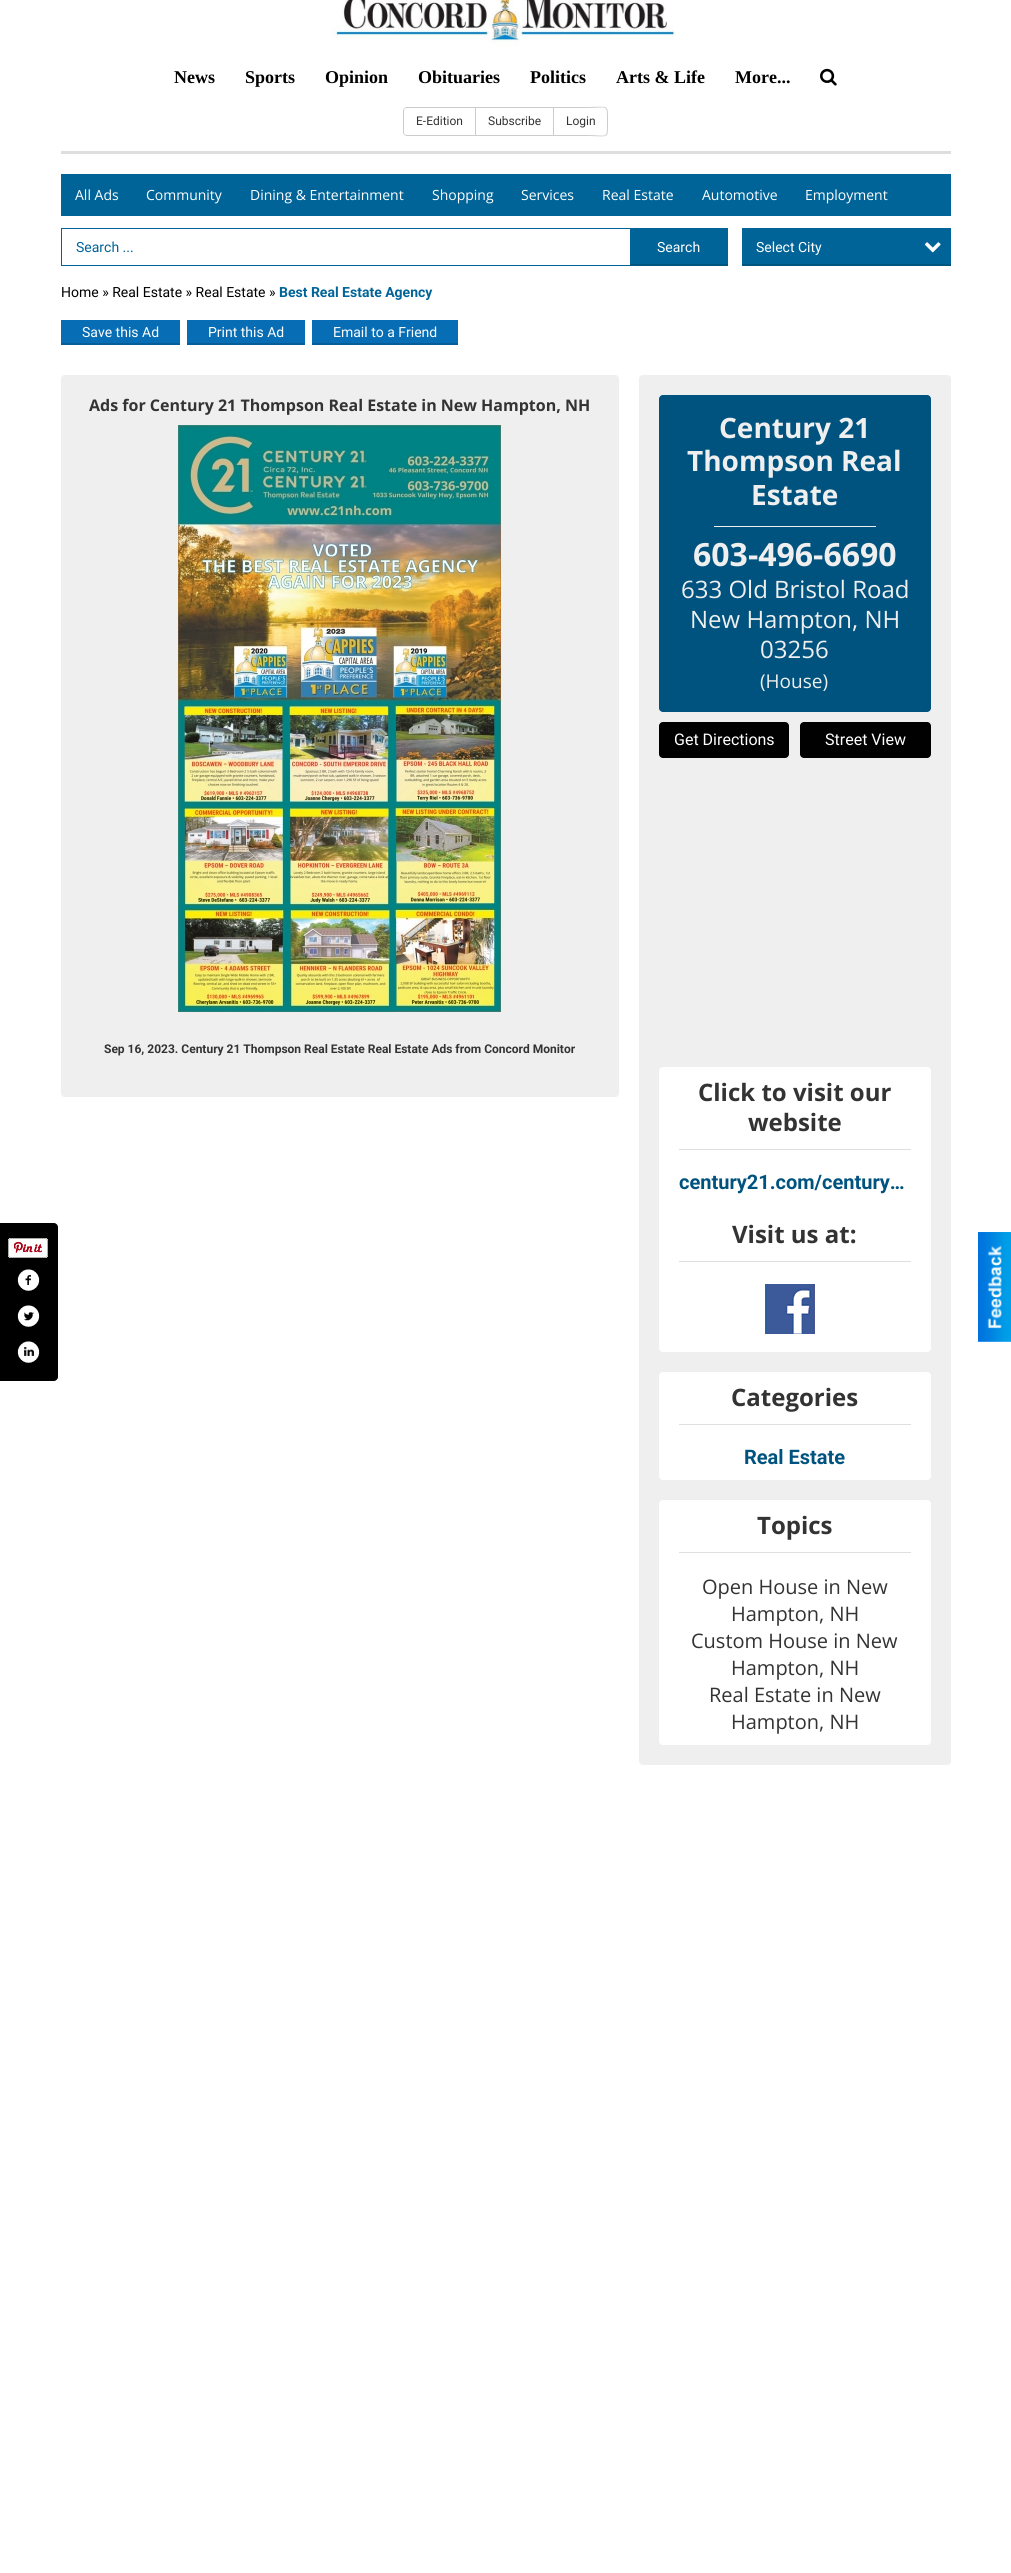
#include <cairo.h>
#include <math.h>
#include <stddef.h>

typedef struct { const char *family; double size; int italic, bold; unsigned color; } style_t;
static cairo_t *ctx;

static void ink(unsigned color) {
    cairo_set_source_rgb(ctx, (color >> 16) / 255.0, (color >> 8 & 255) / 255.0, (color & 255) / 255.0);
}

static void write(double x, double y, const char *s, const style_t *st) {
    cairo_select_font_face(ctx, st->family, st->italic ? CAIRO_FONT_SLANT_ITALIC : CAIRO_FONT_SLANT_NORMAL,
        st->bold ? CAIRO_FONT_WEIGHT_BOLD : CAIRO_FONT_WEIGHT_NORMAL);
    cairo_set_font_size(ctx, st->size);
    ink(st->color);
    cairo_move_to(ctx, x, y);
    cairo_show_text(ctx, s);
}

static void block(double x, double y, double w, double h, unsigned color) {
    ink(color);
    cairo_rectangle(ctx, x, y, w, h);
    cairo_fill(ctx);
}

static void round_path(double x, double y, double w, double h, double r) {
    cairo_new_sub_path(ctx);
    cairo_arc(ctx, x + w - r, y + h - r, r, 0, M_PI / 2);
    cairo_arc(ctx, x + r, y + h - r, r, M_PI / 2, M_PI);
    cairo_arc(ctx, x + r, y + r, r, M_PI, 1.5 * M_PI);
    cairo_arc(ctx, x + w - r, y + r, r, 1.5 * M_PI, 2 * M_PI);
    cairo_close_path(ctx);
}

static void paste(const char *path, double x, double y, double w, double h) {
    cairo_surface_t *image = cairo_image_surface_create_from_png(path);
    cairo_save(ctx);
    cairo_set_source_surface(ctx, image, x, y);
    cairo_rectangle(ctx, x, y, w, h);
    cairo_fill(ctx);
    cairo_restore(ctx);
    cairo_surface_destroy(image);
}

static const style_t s1 = {"Liberation Serif", 18, 0, 1, 0x000000};
static const style_t s2 = {"Roboto", 12, 0, 0, 0x333333};
static const style_t s3 = {"Open Sans", 14, 0, 0, 0xffffff};
static const style_t s4 = {"Roboto", 14, 0, 0, 0x006498};
static const style_t s5 = {"Roboto", 14, 0, 0, 0xffffff};
static const style_t s6 = {"Roboto", 14, 0, 0, 0x000000};
static const style_t s7 = {"Roboto", 14, 0, 1, 0x006498};
static const style_t s8 = {"Open Sans", 16, 0, 1, 0x333333};
static const style_t s9 = {"Roboto", 12, 0, 1, 0x333333};
static const style_t s10 = {"Open Sans", 28, 0, 1, 0xefefef};
static const style_t s11 = {"Open Sans", 32, 0, 1, 0xefefef};
static const style_t s12 = {"Open Sans", 24, 0, 0, 0xefefef};
static const style_t s13 = {"Open Sans", 19, 0, 0, 0xefefef};
static const style_t s14 = {"Roboto", 16, 0, 0, 0xffffff};
static const style_t s15 = {"Open Sans", 24, 0, 1, 0x333333};
static const style_t s16 = {"Roboto", 20, 0, 1, 0x00537f};
static const style_t s17 = {"Open Sans", 20, 0, 0, 0x333333};

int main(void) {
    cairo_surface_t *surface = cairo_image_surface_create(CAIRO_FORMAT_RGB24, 1011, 2573);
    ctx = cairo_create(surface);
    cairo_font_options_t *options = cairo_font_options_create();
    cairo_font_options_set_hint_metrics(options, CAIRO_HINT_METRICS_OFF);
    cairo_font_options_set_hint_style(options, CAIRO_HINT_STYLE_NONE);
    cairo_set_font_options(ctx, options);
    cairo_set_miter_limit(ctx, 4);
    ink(0xffffff);
    cairo_paint(ctx);
    block(61, 151, 890, 3, 0xdedede);
    paste("pic1.png", 331, 0, 344, 46);
    write(174, 83, "News", &s1);
    write(245, 83, "Sports", &s1);
    write(325, 83, "Opinion", &s1);
    write(418, 83, "Obituaries", &s1);
    write(530, 83, "Politics", &s1);
    write(616, 83, "Arts & Life", &s1);
    write(735, 83, "More...", &s1);
    paste("pic2.png", 820, 68, 17, 18);
    ink(0xcccccc);
    cairo_set_fill_rule(ctx, CAIRO_FILL_RULE_EVEN_ODD);
    cairo_new_path(ctx);
    cairo_move_to(ctx, 407, 107);
    cairo_line_to(ctx, 475, 107);
    cairo_line_to(ctx, 475, 136);
    cairo_line_to(ctx, 407, 136);
    cairo_curve_to(ctx, 405, 136, 403, 134, 403, 132);
    cairo_line_to(ctx, 403, 111);
    cairo_curve_to(ctx, 403, 109, 405, 107, 407, 107);
    cairo_close_path(ctx);
    cairo_move_to(ctx, 407, 108);
    cairo_line_to(ctx, 475, 108);
    cairo_line_to(ctx, 475, 135);
    cairo_line_to(ctx, 407, 135);
    cairo_curve_to(ctx, 405, 135, 404, 134, 404, 132);
    cairo_line_to(ctx, 404, 111);
    cairo_curve_to(ctx, 404, 109, 405, 108, 407, 108);
    cairo_close_path(ctx);
    cairo_fill(ctx);
    write(416, 125, "E-Edition", &s2);
    cairo_rectangle(ctx, 475.5, 107.5, 78, 28);
    ink(0xcccccc);
    cairo_set_line_width(ctx, 1);
    cairo_stroke(ctx);
    write(488, 125, "Subscribe", &s2);
    ink(0xcccccc);
    cairo_new_path(ctx);
    cairo_move_to(ctx, 554, 107);
    cairo_line_to(ctx, 587, 107);
    cairo_curve_to(ctx, 609, 107, 608, 103, 608, 122);
    cairo_curve_to(ctx, 608, 140, 609, 136, 587, 136);
    cairo_line_to(ctx, 554, 136);
    cairo_close_path(ctx);
    cairo_move_to(ctx, 554, 108);
    cairo_line_to(ctx, 587, 108);
    cairo_curve_to(ctx, 608, 108, 607, 103, 607, 122);
    cairo_curve_to(ctx, 607, 140, 608, 135, 587, 135);
    cairo_line_to(ctx, 554, 135);
    cairo_close_path(ctx);
    cairo_fill(ctx);
    write(566, 125, "Login", &s2);
    ink(0x000000);
    cairo_new_path(ctx);
    cairo_move_to(ctx, 0, 1223);
    cairo_line_to(ctx, 54, 1223);
    cairo_curve_to(ctx, 56, 1223, 58, 1225, 58, 1227);
    cairo_line_to(ctx, 58, 1377);
    cairo_curve_to(ctx, 58, 1379, 56, 1381, 54, 1381);
    cairo_line_to(ctx, 0, 1381);
    cairo_close_path(ctx);
    cairo_fill(ctx);
    paste("pic3.png", 8, 1238, 40, 20);
    paste("pic4.png", 17, 1269, 23, 22);
    paste("pic5.png", 17, 1305, 23, 22);
    paste("pic6.png", 17, 1341, 23, 22);
    block(61, 174, 890, 42, 0x006498);
    write(75, 200, "All Ads", &s3);
    write(146, 200, "Community", &s3);
    write(250, 200, "Dining & Entertainment", &s3);
    write(432, 200, "Shopping", &s3);
    write(521, 200, "Services", &s3);
    write(602, 200, "Real Estate", &s3);
    write(702, 200, "Automotive", &s3);
    write(805, 200, "Employment", &s3);
    cairo_rectangle(ctx, 61.5, 228.5, 666, 37);
    ink(0x006498);
    cairo_stroke(ctx);
    write(76, 252, "Search ...", &s4);
    block(630, 229, 97, 35, 0x006498);
    block(630, 264, 98, 2, 0x005581);
    write(657, 252, "Search", &s5);
    block(742, 228, 209, 36, 0x006498);
    block(742, 264, 209, 2, 0x005581);
    write(756, 252, "Select City", &s5);
    paste("pic7.png", 924, 242, 17, 11);
    write(61, 297, "Home » Real Estate » Real Estate »", &s6);
    write(279, 297, "Best Real Estate Agency", &s7);
    block(61, 320, 119, 23, 0x076db5);
    block(61, 343, 119, 2, 0x065d9a);
    write(82, 337, "Save this Ad", &s5);
    block(187, 320, 118, 23, 0x076db5);
    block(187, 343, 118, 2, 0x065d9a);
    write(208, 337, "Print this Ad", &s5);
    block(312, 320, 146, 23, 0x076db5);
    block(312, 343, 146, 2, 0x065d9a);
    write(333, 337, "Email to a Friend", &s5);
    ink(0xefefef);
    round_path(61, 375, 558, 722, 4);
    cairo_fill(ctx);
    write(89, 411, "Ads for Century 21 Thompson Real Estate in New Hampton, NH", &s8);
    paste("pic8.png", 178, 425, 323, 587);
    write(104, 1053, "Sep 16, 2023. Century 21 Thompson Real Estate Real Estate Ads from Concord Monitor", &s9);
    ink(0xefefef);
    round_path(639, 375, 312, 1390, 4);
    cairo_fill(ctx);
    ink(0x00537f);
    round_path(659, 395, 272, 317, 4);
    cairo_fill(ctx);
    write(719, 438, "Century 21", &s10);
    write(687, 471, "Thompson Real", &s10);
    write(751, 505, "Estate", &s10);
    block(714, 526, 162, 1, 0xefefef);
    write(693, 566, "603-496-6690", &s11);
    write(681, 598, "633 Old Bristol Road", &s12);
    write(690, 628, "New Hampton, NH", &s12);
    write(760, 658, "03256", &s12);
    write(760, 688, "(House)", &s13);
    ink(0x010101);
    round_path(659, 722, 130, 36, 4);
    cairo_fill(ctx);
    write(674, 745, "Get Directions", &s14);
    ink(0x010101);
    round_path(800, 722, 131, 36, 4);
    cairo_fill(ctx);
    write(825, 745, "Street View", &s14);
    round_path(659, 1067, 272, 285, 4);
    cairo_fill(ctx);
    block(679, 1149, 232, 1, 0xdfdfdf);
    write(698, 1101, "Click to visit our", &s15);
    write(748, 1131, "website", &s15);
    write(679, 1189, "century21.com/century…", &s16);
    block(679, 1261, 232, 1, 0xdfdfdf);
    write(732, 1243, "Visit us at:", &s15);
    paste("pic9.png", 765, 1284, 50, 50);
    ink(0xffffff);
    round_path(659, 1372, 272, 108, 4);
    cairo_fill(ctx);
    block(679, 1424, 232, 1, 0xdfdfdf);
    write(731, 1406, "Categories", &s15);
    write(744, 1464, "Real Estate", &s16);
    ink(0xffffff);
    round_path(659, 1500, 272, 245, 4);
    cairo_fill(ctx);
    block(679, 1552, 232, 1, 0xdfdfdf);
    write(757, 1534, "Topics", &s15);
    write(702, 1594, "Open House in New", &s17);
    write(731, 1621, "Hampton, NH", &s17);
    write(691, 1648, "Custom House in New", &s17);
    write(731, 1675, "Hampton, NH", &s17);
    write(709, 1702, "Real Estate in New", &s17);
    write(731, 1729, "Hampton, NH", &s17);
    paste("pic10.png", 978, 1232, 33, 110);
    cairo_surface_write_to_png(surface, "screenshot.png");
    cairo_font_options_destroy(options);
    cairo_destroy(ctx);
    cairo_surface_destroy(surface);
    return 0;
}
